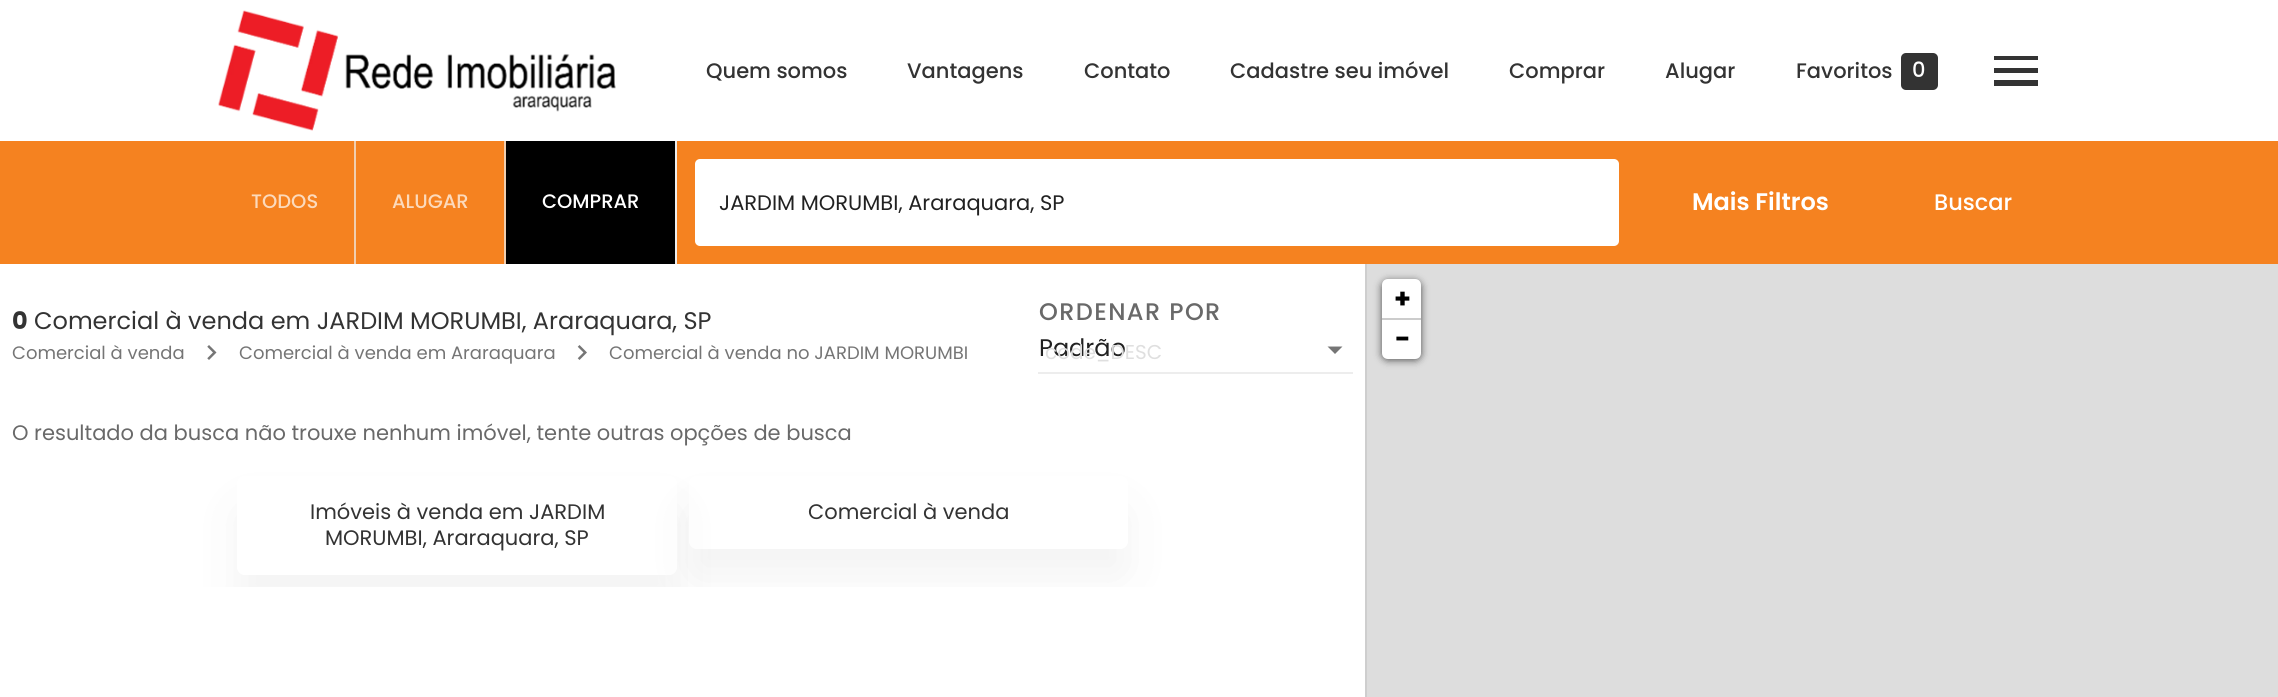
#include <cairo.h>
#include <math.h>
#include <stddef.h>

typedef struct { const char *family; double size; int italic, bold; unsigned color; } style_t;
static cairo_t *ctx;

static void ink(unsigned color) {
    cairo_set_source_rgb(ctx, (color >> 16) / 255.0, (color >> 8 & 255) / 255.0, (color & 255) / 255.0);
}

static void write(double x, double y, const char *s, const style_t *st) {
    cairo_select_font_face(ctx, st->family, st->italic ? CAIRO_FONT_SLANT_ITALIC : CAIRO_FONT_SLANT_NORMAL,
        st->bold ? CAIRO_FONT_WEIGHT_BOLD : CAIRO_FONT_WEIGHT_NORMAL);
    cairo_set_font_size(ctx, st->size);
    ink(st->color);
    cairo_move_to(ctx, x, y);
    cairo_show_text(ctx, s);
}

static void write_spaced(double x, double y, const char *s, double letter, double word) {
    cairo_move_to(ctx, x, y);
    while (*s) {
        char ch[5] = {0};
        int n = 0;
        do ch[n++] = *s++; while ((*s & 0xC0) == 0x80);
        cairo_show_text(ctx, ch);
        cairo_rel_move_to(ctx, letter + word * (*ch == ' '), 0);
    }
}

static void block(double x, double y, double w, double h, unsigned color) {
    ink(color);
    cairo_rectangle(ctx, x, y, w, h);
    cairo_fill(ctx);
}

static void round_path(double x, double y, double w, double h, double r) {
    cairo_new_sub_path(ctx);
    cairo_arc(ctx, x + w - r, y + h - r, r, 0, M_PI / 2);
    cairo_arc(ctx, x + r, y + h - r, r, M_PI / 2, M_PI);
    cairo_arc(ctx, x + r, y + r, r, M_PI, 1.5 * M_PI);
    cairo_arc(ctx, x + w - r, y + r, r, 1.5 * M_PI, 2 * M_PI);
    cairo_close_path(ctx);
}

static void blur_box(double x, double y, double w, double h, double r, double blur, double alpha) {
    cairo_push_group_with_content(ctx, CAIRO_CONTENT_ALPHA);
    cairo_set_operator(ctx, CAIRO_OPERATOR_SOURCE);
    for (int i = 15; i >= -15 && fmin(w, h) + blur * i / 3 > 0; i -= 2) {
        double e = blur * i / 6;
        cairo_set_source_rgba(ctx, 0, 0, 0, alpha * erfc((i - 1) / 8.5) / 2);
        round_path(x - e, y - e, w + 2 * e, h + 2 * e, fmax(0, fmin(r + e + blur * .6, fmin(w, h) / 2 + e)));
        cairo_fill(ctx);
    }
    cairo_pattern_t *soft = cairo_pop_group(ctx);
    cairo_mask(ctx, soft);
    cairo_pattern_destroy(soft);
}

static void paste(const char *path, double x, double y, double w, double h) {
    cairo_surface_t *image = cairo_image_surface_create_from_png(path);
    cairo_save(ctx);
    cairo_set_source_surface(ctx, image, x, y);
    cairo_rectangle(ctx, x, y, w, h);
    cairo_fill(ctx);
    cairo_restore(ctx);
    cairo_surface_destroy(image);
}

static const style_t s1 = {"Poppins Medium", 21, 0, 0, 0x333333};
static const style_t s2 = {"Poppins Medium", 21, 0, 0, 0xffffff};
static const style_t s3 = {"Poppins Medium", 19.5, 0, 0, 0xfcdabc};
static const style_t s4 = {"Poppins Medium", 19.5, 0, 0, 0xffffff};
static const style_t s5 = {"Poppins", 21, 0, 0, 0x212121};
static const style_t s6 = {"Poppins SemiBold", 24, 0, 0, 0xffffff};
static const style_t s7 = {"Poppins Medium", 22.5, 0, 0, 0xffffff};
static const style_t s8 = {"Poppins", 24, 0, 1, 0x333333};
static const style_t s9 = {"Poppins", 24, 0, 0, 0x333333};
static const style_t s10 = {"Poppins", 18, 0, 0, 0x757575};
static const style_t s11 = {"Poppins", 24, 0, 0, 0x212121};
static const style_t s12 = {"Poppins", 20, 0, 0, 0xdfdfdf};
static const style_t s13 = {"Poppins", 21, 0, 0, 0x696969};
static const style_t s14 = {"Poppins", 21, 0, 0, 0x333333};
static const style_t s15 = {"Poppins", 27, 0, 1, 0x000000};

int main(void) {
    cairo_surface_t *surface = cairo_image_surface_create(CAIRO_FORMAT_RGB24, 2278, 697);
    ctx = cairo_create(surface);
    cairo_font_options_t *options = cairo_font_options_create();
    cairo_font_options_set_hint_metrics(options, CAIRO_HINT_METRICS_OFF);
    cairo_font_options_set_hint_style(options, CAIRO_HINT_STYLE_NONE);
    cairo_set_font_options(ctx, options);
    cairo_set_miter_limit(ctx, 4);
    ink(0xffffff);
    cairo_paint(ctx);
    paste("pic1.png", 218, 10, 398, 121);
    write(706, 78, "Quem somos", &s1);
    write(907, 78, "Vantagens", &s1);
    write(1084, 78, "Contato", &s1);
    write(1230, 78, "Cadastre seu imóvel", &s1);
    write(1509, 78, "Comprar", &s1);
    write(1665, 78, "Alugar", &s1);
    write(1796, 78, "Favoritos", &s1);
    round_path(1901, 53, 37, 37, 5);
    cairo_fill(ctx);
    write(1912, 77, "0", &s2);
    ink(0x333333);
    cairo_new_path(ctx);
    cairo_move_to(ctx, 1994, 86);
    cairo_line_to(ctx, 2038, 86);
    cairo_line_to(ctx, 2038, 80);
    cairo_line_to(ctx, 1994, 80);
    cairo_close_path(ctx);
    cairo_move_to(ctx, 1994, 73);
    cairo_line_to(ctx, 2038, 73);
    cairo_line_to(ctx, 2038, 68);
    cairo_line_to(ctx, 1994, 68);
    cairo_close_path(ctx);
    cairo_move_to(ctx, 1994, 56);
    cairo_line_to(ctx, 1994, 60);
    cairo_line_to(ctx, 2038, 60);
    cairo_line_to(ctx, 2038, 56);
    cairo_close_path(ctx);
    cairo_fill(ctx);
    block(0, 141, 2278, 123, 0xf58220);
    block(354, 141, 2, 123, 0xf0ceb0);
    write(251, 208, "TODOS", &s3);
    block(504, 141, 2, 123, 0xf0ceb0);
    write(392, 208, "ALUGAR", &s3);
    block(506, 141, 169, 123, 0x000000);
    block(675, 141, 2, 123, 0xeeeeee);
    write(542, 208, "COMPRAR", &s4);
    round_path(695, 159, 924, 87, 5);
    cairo_fill(ctx);
    write(719, 210, "JARDIM MORUMBI, Araraquara, SP", &s5);
    write(1692, 210, "Mais Filtros", &s6);
    write(1934, 210, "Buscar", &s7);
    block(1365, 264, 2, 433, 0xcecece);
    write(12, 329, "0", &s8);
    write(34, 329, "Comercial à venda em JARDIM MORUMBI, Araraquara, SP", &s9);
    write(12, 359, "Comercial à venda", &s10);
    paste("pic2.png", 207, 345, 10, 15);
    write(239, 359, "Comercial à venda em Araraquara", &s10);
    paste("pic3.png", 577, 345, 10, 15);
    write(609, 359, "Comercial à venda no JARDIM MORUMBI", &s10);
    cairo_select_font_face(ctx, "Poppins Medium", CAIRO_FONT_SLANT_NORMAL, CAIRO_FONT_WEIGHT_NORMAL);
    cairo_set_font_size(ctx, 24);
    ink(0x696969);
    write_spaced(1039, 320, "ORDENAR POR", 1.4, 0);
    write(1039, 356, "Padrão", &s11);
    write(1045, 359, "code_DESC", &s12);
    ink(0x757575);
    cairo_new_path(ctx);
    cairo_move_to(ctx, 1327.5, 346.5);
    cairo_line_to(ctx, 1335, 354);
    cairo_line_to(ctx, 1342.5, 346.5);
    cairo_close_path(ctx);
    cairo_fill(ctx);
    block(1038, 372, 315, 2, 0xededed);
    write(12, 440, "O resultado da busca não trouxe nenhum imóvel, tente outras opções de busca", &s13);
    cairo_save(ctx);
    cairo_rectangle(ctx, 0, 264, 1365, 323);
    cairo_clip(ctx);
    cairo_set_fill_rule(ctx, CAIRO_FILL_RULE_EVEN_ODD);
    cairo_new_path(ctx);
    cairo_move_to(ctx, 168, 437);
    cairo_line_to(ctx, 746, 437);
    cairo_line_to(ctx, 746, 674);
    cairo_line_to(ctx, 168, 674);
    cairo_close_path(ctx);
    cairo_move_to(ctx, 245, 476);
    cairo_line_to(ctx, 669, 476);
    cairo_curve_to(ctx, 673.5, 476, 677, 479.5, 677, 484);
    cairo_line_to(ctx, 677, 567);
    cairo_curve_to(ctx, 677, 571.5, 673.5, 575, 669, 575);
    cairo_line_to(ctx, 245, 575);
    cairo_curve_to(ctx, 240.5, 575, 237, 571.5, 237, 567);
    cairo_line_to(ctx, 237, 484);
    cairo_curve_to(ctx, 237, 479.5, 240.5, 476, 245, 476);
    cairo_close_path(ctx);
    cairo_clip(ctx);
    ink(0x333333);
    blur_box(237, 506, 440, 99, 8, 22.5, 0.06);
    cairo_restore(ctx);
    write(310, 519, "Imóveis à venda em JARDIM", &s14);
    write(325, 545, "MORUMBI, Araraquara, SP", &s14);
    cairo_save(ctx);
    cairo_rectangle(ctx, 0, 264, 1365, 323);
    cairo_clip(ctx);
    cairo_set_fill_rule(ctx, CAIRO_FILL_RULE_EVEN_ODD);
    cairo_new_path(ctx);
    cairo_move_to(ctx, 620, 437);
    cairo_line_to(ctx, 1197, 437);
    cairo_line_to(ctx, 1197, 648);
    cairo_line_to(ctx, 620, 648);
    cairo_close_path(ctx);
    cairo_move_to(ctx, 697, 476);
    cairo_line_to(ctx, 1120, 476);
    cairo_curve_to(ctx, 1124.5, 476, 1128, 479.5, 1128, 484);
    cairo_line_to(ctx, 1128, 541);
    cairo_curve_to(ctx, 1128, 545.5, 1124.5, 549, 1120, 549);
    cairo_line_to(ctx, 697, 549);
    cairo_curve_to(ctx, 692.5, 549, 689, 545.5, 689, 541);
    cairo_line_to(ctx, 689, 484);
    cairo_curve_to(ctx, 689, 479.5, 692.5, 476, 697, 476);
    cairo_close_path(ctx);
    cairo_clip(ctx);
    ink(0x333333);
    blur_box(689, 506, 439, 73, 8, 22.5, 0.06);
    cairo_restore(ctx);
    write(808, 519, "Comercial à venda", &s14);
    block(1367, 264, 911, 433, 0xdddddd);
    ink(0x000000);
    blur_box(1382, 281, 39, 79, 6, 4, 0.65);
    ink(0xffffff);
    cairo_new_path(ctx);
    cairo_move_to(ctx, 1388, 279);
    cairo_line_to(ctx, 1415, 279);
    cairo_curve_to(ctx, 1418.5, 279, 1421, 281.5, 1421, 285);
    cairo_line_to(ctx, 1421, 320);
    cairo_line_to(ctx, 1382, 320);
    cairo_line_to(ctx, 1382, 285);
    cairo_curve_to(ctx, 1382, 281.5, 1384.5, 279, 1388, 279);
    cairo_close_path(ctx);
    cairo_fill(ctx);
    block(1382, 318, 39, 2, 0xcccccc);
    write(1394, 308, "+", &s15);
    ink(0xffffff);
    cairo_new_path(ctx);
    cairo_move_to(ctx, 1382, 320);
    cairo_line_to(ctx, 1421, 320);
    cairo_line_to(ctx, 1421, 353);
    cairo_curve_to(ctx, 1421, 356.5, 1418.5, 359, 1415, 359);
    cairo_line_to(ctx, 1388, 359);
    cairo_curve_to(ctx, 1384.5, 359, 1382, 356.5, 1382, 353);
    cairo_close_path(ctx);
    cairo_fill(ctx);
    write(1395, 348, "−", &s15);
    cairo_surface_write_to_png(surface, "screenshot.png");
    cairo_font_options_destroy(options);
    cairo_destroy(ctx);
    cairo_surface_destroy(surface);
    return 0;
}
